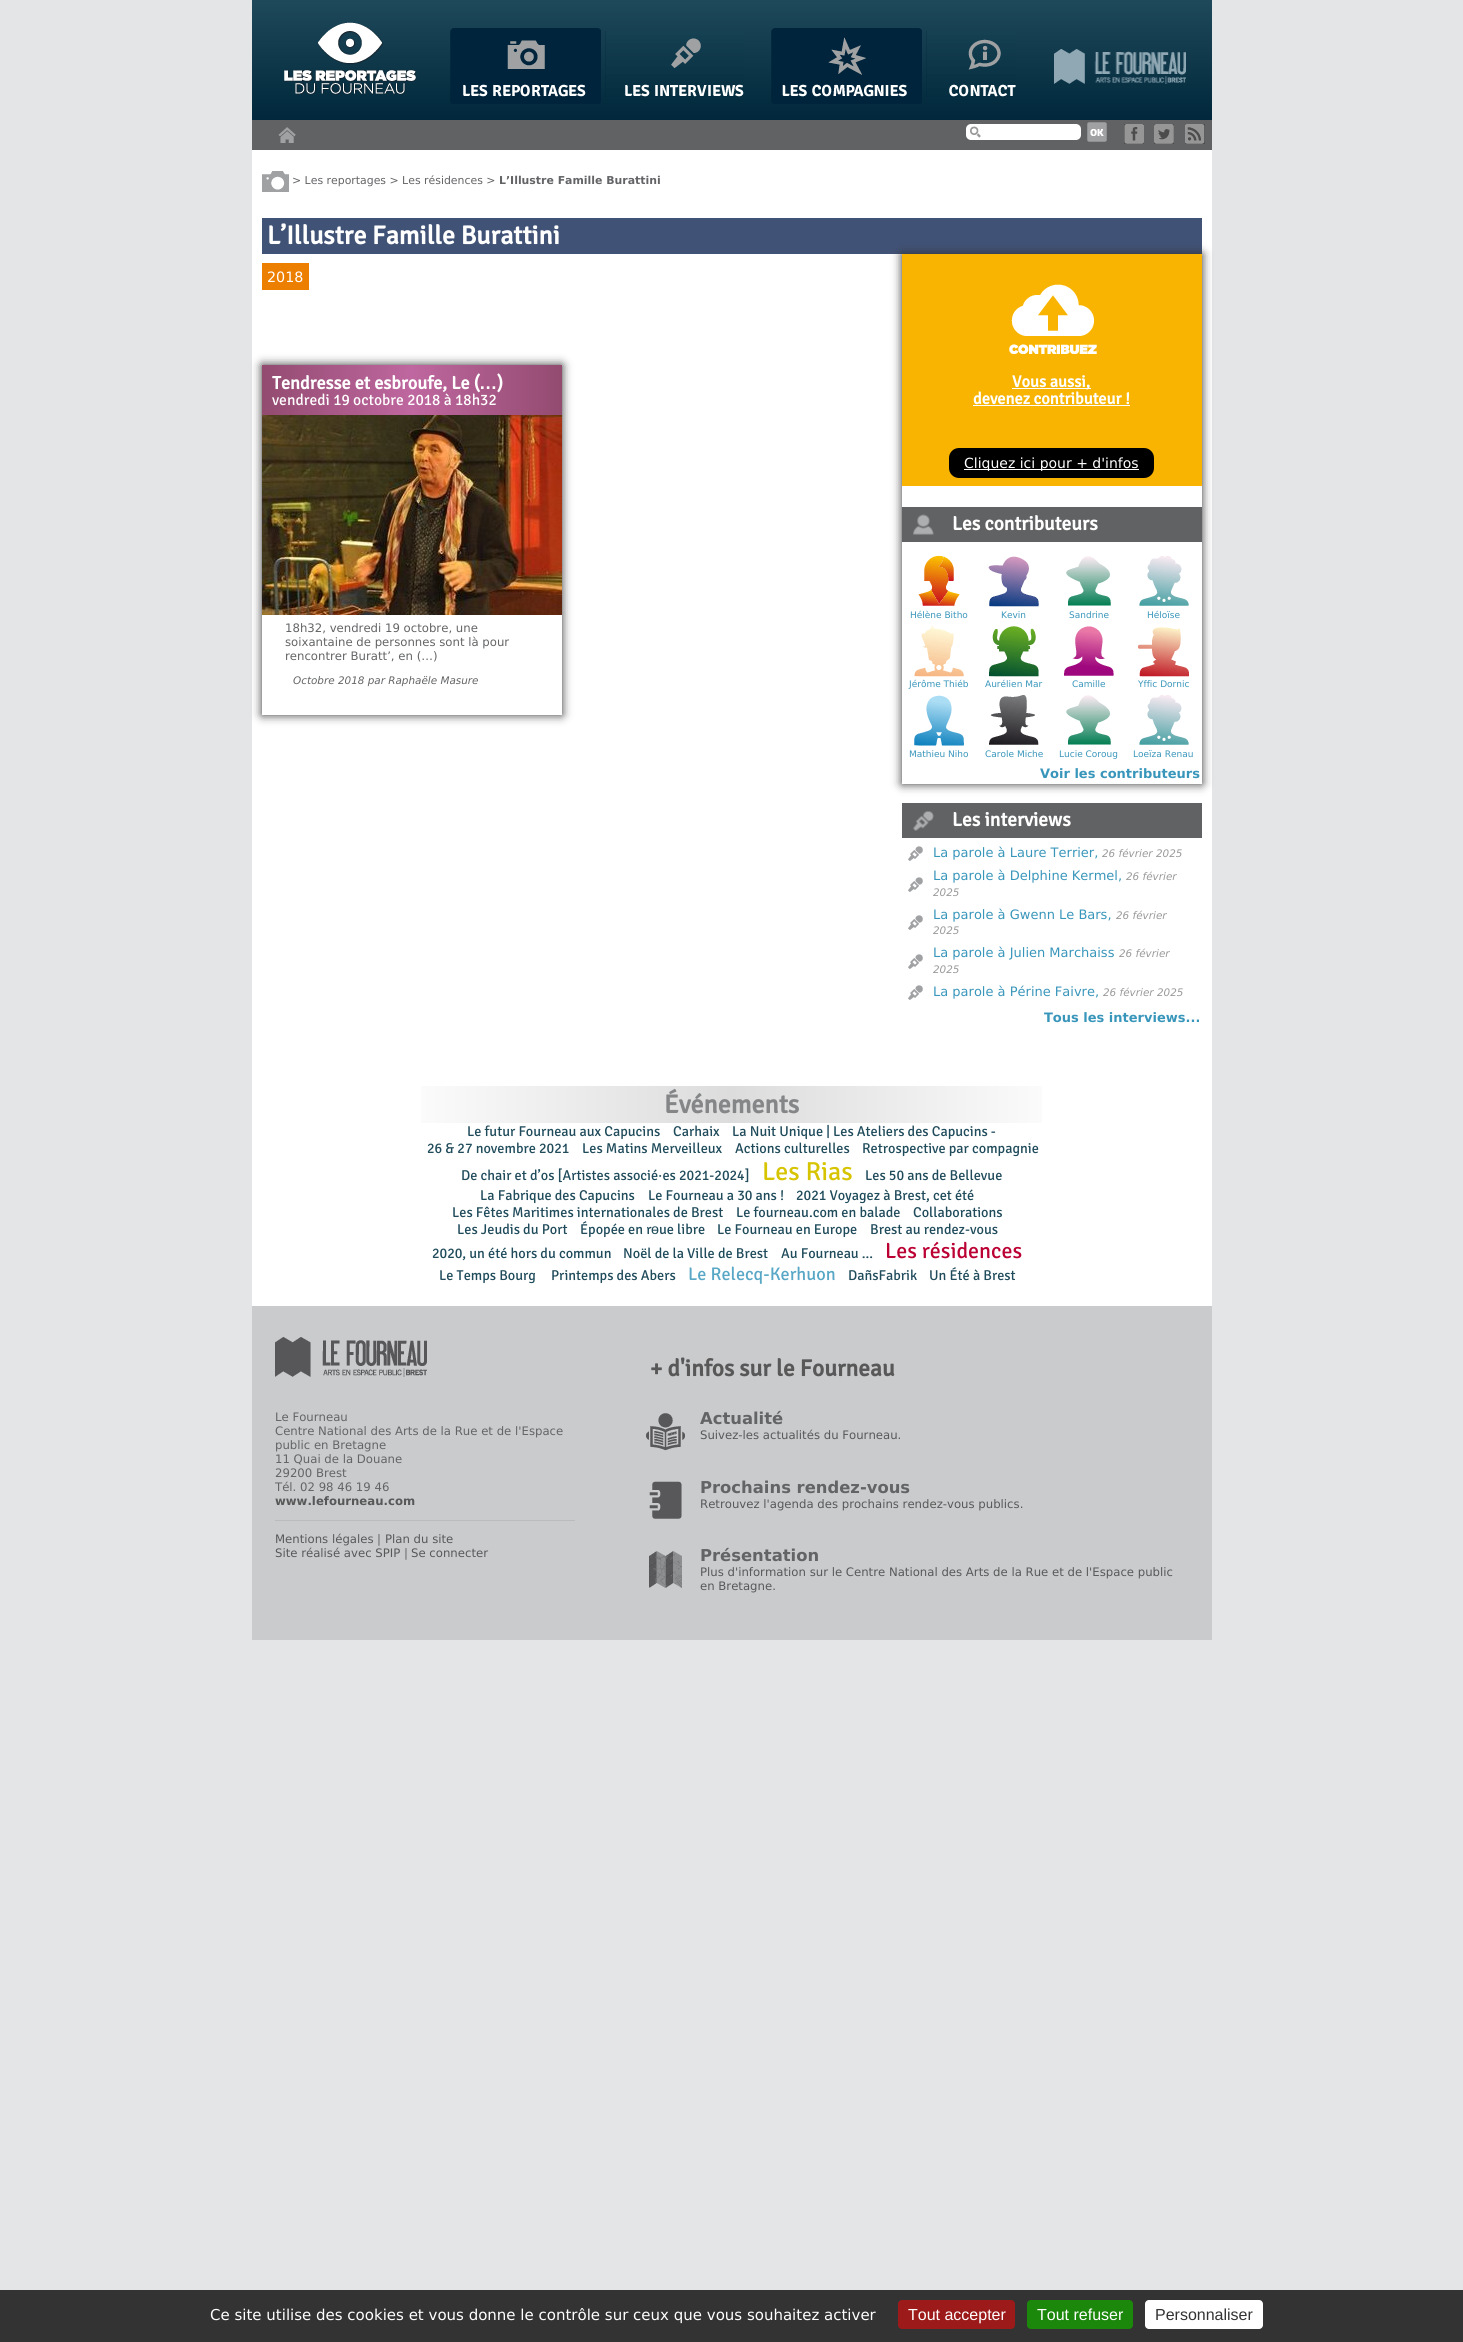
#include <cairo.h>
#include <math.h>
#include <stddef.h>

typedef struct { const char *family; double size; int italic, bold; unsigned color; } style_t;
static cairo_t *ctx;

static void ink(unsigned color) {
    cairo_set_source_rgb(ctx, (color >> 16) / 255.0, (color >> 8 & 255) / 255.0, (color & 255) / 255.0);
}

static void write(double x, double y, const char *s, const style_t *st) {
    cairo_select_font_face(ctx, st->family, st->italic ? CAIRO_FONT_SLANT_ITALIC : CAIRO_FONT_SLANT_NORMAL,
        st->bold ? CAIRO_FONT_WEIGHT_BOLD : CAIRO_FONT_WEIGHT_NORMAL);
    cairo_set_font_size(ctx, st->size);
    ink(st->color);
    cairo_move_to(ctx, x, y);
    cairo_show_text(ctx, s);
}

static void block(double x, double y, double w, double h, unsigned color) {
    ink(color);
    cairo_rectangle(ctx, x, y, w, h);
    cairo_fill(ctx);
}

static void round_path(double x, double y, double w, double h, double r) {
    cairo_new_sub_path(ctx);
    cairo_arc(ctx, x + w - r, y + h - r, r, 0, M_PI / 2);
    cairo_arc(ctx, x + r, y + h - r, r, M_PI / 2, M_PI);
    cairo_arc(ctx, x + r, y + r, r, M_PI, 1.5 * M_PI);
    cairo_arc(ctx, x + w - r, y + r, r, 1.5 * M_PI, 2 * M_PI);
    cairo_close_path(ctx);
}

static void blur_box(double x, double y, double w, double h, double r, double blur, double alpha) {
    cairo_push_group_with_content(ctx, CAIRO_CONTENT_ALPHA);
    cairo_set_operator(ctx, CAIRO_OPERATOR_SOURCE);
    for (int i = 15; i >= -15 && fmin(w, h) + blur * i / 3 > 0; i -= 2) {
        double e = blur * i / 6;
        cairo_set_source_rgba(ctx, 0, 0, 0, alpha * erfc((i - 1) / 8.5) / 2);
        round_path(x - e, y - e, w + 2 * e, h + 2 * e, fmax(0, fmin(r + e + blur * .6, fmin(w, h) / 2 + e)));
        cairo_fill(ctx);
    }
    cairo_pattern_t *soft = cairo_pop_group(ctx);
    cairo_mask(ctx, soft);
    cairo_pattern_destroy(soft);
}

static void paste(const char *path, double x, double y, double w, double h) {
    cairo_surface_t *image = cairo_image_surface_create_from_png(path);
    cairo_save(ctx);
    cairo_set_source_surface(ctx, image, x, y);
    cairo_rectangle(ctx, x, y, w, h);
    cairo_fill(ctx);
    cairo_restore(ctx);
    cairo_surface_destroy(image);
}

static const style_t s1 = {"DejaVu Sans", 10.9, 0, 0, 0x636466};
static const style_t s2 = {"DejaVu Sans", 10.9, 0, 1, 0x636466};
static const style_t s3 = {"Signika", 26, 0, 1, 0xffffff};
static const style_t s4 = {"DejaVu Sans", 14.3, 0, 0, 0xffffff};
static const style_t s5 = {"Signika", 18.25, 0, 1, 0xffffff};
static const style_t s6 = {"Liberation Sans", 18.25, 0, 1, 0xffffff};
static const style_t s7 = {"Signika", 15.6, 0, 0, 0xffffff};
static const style_t s8 = {"DejaVu Sans", 11.7, 0, 0, 0x636466};
static const style_t s9 = {"DejaVu Sans", 10.4, 1, 0, 0x636466};
static const style_t s10 = {"Signika", 16.4, 0, 1, 0xffffff};
static const style_t s11 = {"DejaVu Sans", 14, 0, 0, 0xffffff};
static const style_t s12 = {"Signika", 19.5, 0, 1, 0xffffff};
static const style_t s13 = {"DejaVu Sans", 9, 0, 0, 0x3996bb};
static const style_t s14 = {"DejaVu Sans", 13, 0, 1, 0x3996bb};
static const style_t s15 = {"DejaVu Sans", 13, 0, 0, 0x3996bb};
static const style_t s16 = {"DejaVu Sans", 10.4, 1, 0, 0x999999};
static const style_t s17 = {"Signika", 26, 0, 1, 0x858688};
static const style_t s18 = {"Signika", 14.3, 0, 0, 0x1f4b5b};
static const style_t s19 = {"Signika", 26, 0, 0, 0xd7c400};
static const style_t s20 = {"Liberation Sans", 14.3, 0, 0, 0x1f4b5b};
static const style_t s21 = {"Signika", 22, 0, 0, 0xbb0033};
static const style_t s22 = {"Signika", 18.25, 0, 0, 0x58a7c6};
static const style_t s23 = {"DejaVu Sans", 11.7, 0, 1, 0x585859};
static const style_t s24 = {"DejaVu Sans", 11.7, 0, 0, 0x585859};
static const style_t s25 = {"Signika", 23.4, 0, 1, 0x585859};
static const style_t s26 = {"DejaVu Sans", 16.4, 0, 1, 0x636466};
static const style_t s27 = {"DejaVu Sans", 15, 0, 0, 0xffffff};
static const style_t s28 = {"Liberation Sans", 16, 0, 0, 0xffffff};
static const style_t s29 = {"Liberation Sans", 16, 0, 0, 0x333333};

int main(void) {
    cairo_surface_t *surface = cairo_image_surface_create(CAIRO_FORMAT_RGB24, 1463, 2342);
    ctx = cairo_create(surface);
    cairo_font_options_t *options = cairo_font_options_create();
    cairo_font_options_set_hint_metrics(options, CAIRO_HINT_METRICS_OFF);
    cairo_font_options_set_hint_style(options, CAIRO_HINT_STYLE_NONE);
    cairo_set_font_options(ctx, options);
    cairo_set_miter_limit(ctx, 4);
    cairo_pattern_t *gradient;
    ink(0xe4e5e6);
    cairo_paint(ctx);
    block(252, 150, 960, 1156, 0xffffff);
    paste("pic1.png", 252, 0, 960, 120);
    paste("pic2.png", 284, 22, 133, 73);
    paste("pic3.png", 450, 28, 151, 76);
    paste("pic4.png", 605, 31, 139, 66);
    paste("pic5.png", 771, 28, 151, 76);
    paste("pic6.png", 926, 31, 90, 66);
    paste("pic7.png", 1054, 49, 132, 35);
    block(252, 120, 960, 30, 0x616264);
    paste("pic8.png", 278, 127, 18, 16);
    ink(0xffffff);
    round_path(966, 124, 115, 16, 5);
    cairo_fill(ctx);
    paste("pic9.png", 970, 126, 11, 12);
    paste("pic10.png", 1087, 122, 20, 20);
    paste("pic11.png", 1124, 124, 20, 20);
    paste("pic12.png", 1154, 124, 20, 20);
    paste("pic13.png", 1185, 124, 20, 20);
    paste("pic14.png", 262, 171, 27, 21);
    write(292, 184, "> Les reportages > Les résidences >", &s1);
    write(499, 184, "L’Illustre Famille Burattini", &s2);
    block(262, 218, 940, 36, 0x405276);
    write(267, 244, "L’Illustre Famille Burattini", &s3);
    block(262, 263, 47, 27, 0xed7f00);
    write(267, 282, "2018", &s4);
    cairo_save(ctx);
    cairo_set_fill_rule(ctx, CAIRO_FILL_RULE_EVEN_ODD);
    cairo_new_path(ctx);
    cairo_move_to(ctx, 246, 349);
    cairo_line_to(ctx, 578, 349);
    cairo_line_to(ctx, 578, 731);
    cairo_line_to(ctx, 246, 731);
    cairo_close_path(ctx);
    cairo_move_to(ctx, 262, 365);
    cairo_line_to(ctx, 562, 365);
    cairo_line_to(ctx, 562, 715);
    cairo_line_to(ctx, 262, 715);
    cairo_close_path(ctx);
    cairo_clip(ctx);
    ink(0x333333);
    blur_box(262, 365, 300, 350, 0, 5, 1);
    cairo_restore(ctx);
    gradient = cairo_pattern_create_linear(262, 390, 562, 390);
    cairo_pattern_add_color_stop_rgba(gradient, 0, 0.576, 0.294, 0.439, 1);
    cairo_pattern_add_color_stop_rgba(gradient, 0.5, 0.749, 0.404, 0.627, 1);
    cairo_pattern_add_color_stop_rgba(gradient, 1, 0.576, 0.294, 0.439, 1);
    cairo_set_source(ctx, gradient);
    cairo_pattern_destroy(gradient);
    cairo_rectangle(ctx, 262, 365, 300, 50);
    cairo_fill(ctx);
    write(272, 389, "Tendresse et esbroufe, Le (", &s5);
    write(479, 389, "…", &s6);
    write(497, 389, ")", &s5);
    write(272, 405, "vendredi 19 octobre 2018 à 18h32", &s7);
    paste("pic15.png", 262, 415, 300, 200);
    write(285, 632, "18h32, vendredi 19 octobre, une", &s8);
    write(285, 646, "soixantaine de personnes sont là pour", &s8);
    write(285, 660, "rencontrer Buratt’, en (…)", &s8);
    write(293, 684, "Octobre 2018 par Raphaële Masure", &s9);
    ink(0x333333);
    blur_box(902, 254, 300, 530, 0, 5, 1);
    block(902, 254, 300, 232, 0xf8b400);
    paste("pic16.png", 1009, 284, 88, 70);
    block(1012, 388, 79, 1, 0xffffff);
    write(1012, 387, "Vous aussi,", &s10);
    write(973, 404, "devenez contributeur !", &s10);
    block(973, 405, 157, 1, 0xffffff);
    ink(0x000000);
    round_path(949, 448, 205, 30, 10);
    cairo_fill(ctx);
    block(964, 469, 175, 1, 0xffffff);
    write(964, 468, "Cliquez ici pour + d'infos", &s11);
    block(902, 486, 300, 298, 0xffffff);
    block(902, 507, 300, 35, 0x616264);
    paste("pic17.png", 913, 514, 21, 21);
    write(952, 530, "Les contributeurs", &s12);
    paste("pic18.png", 918, 555, 42, 51);
    write(910, 618, "Hélène Bitho", &s13);
    paste("pic19.png", 988, 556, 51, 51);
    write(1001, 618, "Kevin", &s13);
    paste("pic20.png", 1066, 556, 45, 50);
    write(1069, 618, "Sandrine", &s13);
    paste("pic21.png", 1139, 556, 50, 50);
    write(1147, 618, "Héloïse", &s13);
    paste("pic22.png", 914, 625, 50, 52);
    write(909, 687, "Jérôme Thiéb", &s13);
    paste("pic23.png", 989, 626, 50, 51);
    write(985, 687, "Aurélien Mar", &s13);
    paste("pic24.png", 1064, 626, 50, 50);
    write(1072, 687, "Camille", &s13);
    paste("pic25.png", 1138, 627, 51, 50);
    write(1138, 687, "Yffic Dornic", &s13);
    paste("pic26.png", 914, 695, 50, 51);
    write(909, 757, "Mathieu Niho", &s13);
    paste("pic27.png", 989, 695, 50, 50);
    write(985, 757, "Carole Miche", &s13);
    paste("pic20.png", 1066, 695, 45, 50);
    write(1059, 757, "Lucie Coroug", &s13);
    paste("pic21.png", 1139, 695, 50, 50);
    write(1133, 757, "Loeïza Renau", &s13);
    write(1040, 778, "Voir les contributeurs", &s14);
    block(902, 803, 300, 35, 0x616264);
    paste("pic28.png", 913, 811, 21, 20);
    write(952, 826, "Les interviews", &s12);
    paste("pic29.png", 908, 846, 15, 15);
    write(933, 857, "La parole à Laure Terrier,", &s15);
    write(1102, 857, "26 février 2025", &s16);
    paste("pic29.png", 908, 877, 15, 15);
    write(933, 880, "La parole à Delphine Kermel,", &s15);
    write(1126, 880, "26 février", &s16);
    write(933, 896, "2025", &s16);
    paste("pic29.png", 908, 915, 15, 15);
    write(933, 919, "La parole à Gwenn Le Bars,", &s15);
    write(1116, 919, "26 février", &s16);
    write(933, 934, "2025", &s16);
    paste("pic29.png", 908, 954, 15, 15);
    write(933, 957, "La parole à Julien Marchaiss", &s15);
    write(1119, 957, "26 février", &s16);
    write(933, 973, "2025", &s16);
    paste("pic29.png", 908, 985, 15, 15);
    write(933, 996, "La parole à Périne Faivre,", &s15);
    write(1103, 996, "26 février 2025", &s16);
    write(1044, 1022, "Tous les interviews...", &s14);
    gradient = cairo_pattern_create_linear(421, 1105, 1042, 1105);
    cairo_pattern_add_color_stop_rgba(gradient, 0, 0.984, 0.984, 0.984, 1);
    cairo_pattern_add_color_stop_rgba(gradient, 0.5, 0.863, 0.863, 0.863, 1);
    cairo_pattern_add_color_stop_rgba(gradient, 1, 0.984, 0.984, 0.984, 1);
    cairo_set_source(ctx, gradient);
    cairo_pattern_destroy(gradient);
    cairo_rectangle(ctx, 421, 1086, 621, 37);
    cairo_fill(ctx);
    write(664, 1113, "Événements", &s17);
    write(467, 1136, "Le futur Fourneau aux Capucins", &s18);
    write(673, 1136, "Carhaix", &s18);
    write(732, 1136, "La Nuit Unique | Les Ateliers des Capucins -", &s18);
    write(427, 1153, "26 & 27 novembre 2021", &s18);
    write(582, 1153, "Les Matins Merveilleux", &s18);
    write(735, 1153, "Actions culturelles", &s18);
    write(862, 1153, "Retrospective par compagnie", &s18);
    write(461, 1180, "De chair et d’os [Artistes associé·es 2021-2024]", &s18);
    write(762, 1180, "Les Rias", &s19);
    write(865, 1180, "Les 50 ans de Bellevue", &s18);
    write(480, 1200, "La Fabrique des Capucins", &s18);
    write(648, 1200, "Le Fourneau a 30 ans !", &s18);
    write(796, 1200, "2021 Voyagez à Brest, cet été", &s18);
    write(452, 1217, "Les Fêtes Maritimes internationales de Brest", &s18);
    write(736, 1217, "Le fourneau.com en balade", &s18);
    write(913, 1217, "Collaborations", &s18);
    write(457, 1234, "Les Jeudis du Port", &s18);
    write(580, 1234, "Épopée en r", &s18);
    write(651, 1234, "ɵ", &s20);
    write(659, 1234, "ue libre", &s18);
    write(717, 1234, "Le Fourneau en Europe", &s18);
    write(870, 1234, "Brest au rendez-vous", &s18);
    write(432, 1258, "2020, un été hors du commun", &s18);
    write(623, 1258, "Noël de la Ville de Brest", &s18);
    write(781, 1258, "Au Fourneau ...", &s18);
    write(885, 1258, "Les résidences", &s21);
    write(439, 1280, "Le Temps Bourg", &s18);
    write(551, 1280, "Printemps des Abers", &s18);
    write(688, 1280, "Le Relecq-Kerhuon", &s22);
    write(848, 1280, "DañsFabrik", &s18);
    write(929, 1280, "Un Été à Brest", &s18);
    block(252, 1306, 960, 334, 0xc9cbcc);
    paste("pic30.png", 275, 1337, 152, 40);
    write(275, 1421, "Le Fourneau", &s8);
    write(275, 1435, "Centre National des Arts de la Rue et de l'Espace", &s8);
    write(275, 1449, "public en Bretagne", &s8);
    write(275, 1463, "11 Quai de la Douane", &s8);
    write(275, 1477, "29200 Brest", &s8);
    write(275, 1491, "Tél. 02 98 46 19 46", &s8);
    write(275, 1505, "www.lefourneau.com", &s23);
    block(275, 1520, 300, 1, 0xbbbbbb);
    write(275, 1543, "Mentions légales", &s24);
    write(377, 1543, "|", &s8);
    write(385, 1543, "Plan du site", &s24);
    write(275, 1557, "Site réalisé avec SPIP", &s24);
    write(404, 1557, "|", &s8);
    write(411, 1557, "Se connecter", &s24);
    write(650, 1376, "+ d'infos sur le Fourneau", &s25);
    paste("pic31.png", 646, 1413, 39, 38);
    write(700, 1424, "Actualité", &s26);
    write(700, 1439, "Suivez-les actualités du Fourneau.", &s24);
    paste("pic32.png", 649, 1481, 33, 38);
    write(700, 1493, "Prochains rendez-vous", &s26);
    write(700, 1508, "Retrouvez l'agenda des prochains rendez-vous publics.", &s24);
    paste("pic33.png", 649, 1551, 33, 37);
    write(700, 1561, "Présentation", &s26);
    write(700, 1576, "Plus d'information sur le Centre National des Arts de la Rue et de l'Espace public", &s24);
    write(700, 1590, "en Bretagne.", &s24);
    block(0, 2290, 1463, 52, 0x333333);
    write(210, 2320, "Ce site utilise des cookies et vous donne le contrôle sur ceux que vous souhaitez activer", &s27);
    ink(0x9c1a1a);
    round_path(898, 2300, 117, 29, 4);
    cairo_fill(ctx);
    write(908, 2320, "Tout accepter", &s28);
    ink(0x1b870b);
    round_path(1027, 2300, 106, 29, 4);
    cairo_fill(ctx);
    write(1037, 2320, "Tout refuser", &s28);
    round_path(1145, 2300, 118, 29, 4);
    cairo_fill(ctx);
    write(1155, 2320, "Personnaliser", &s29);
    cairo_surface_write_to_png(surface, "screenshot.png");
    cairo_font_options_destroy(options);
    cairo_destroy(ctx);
    cairo_surface_destroy(surface);
    return 0;
}
